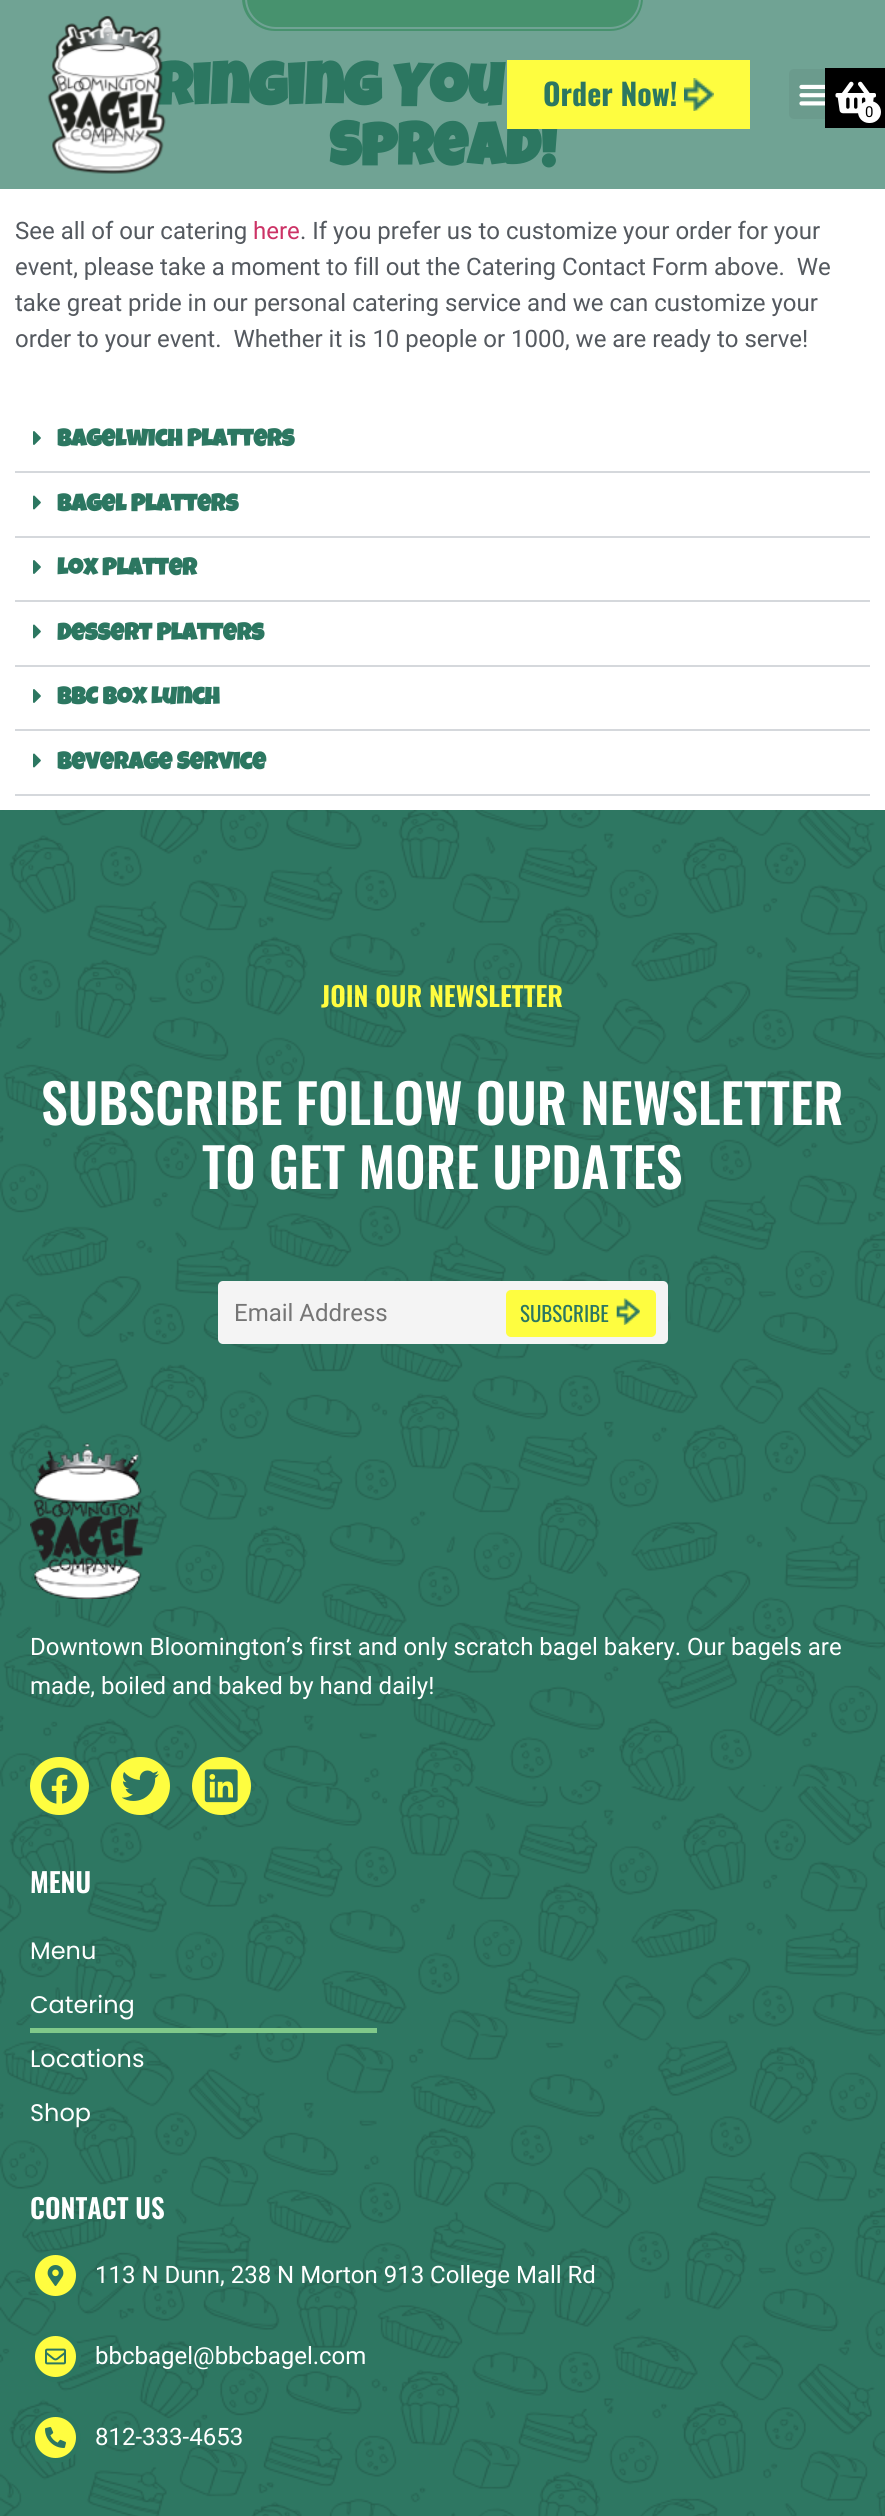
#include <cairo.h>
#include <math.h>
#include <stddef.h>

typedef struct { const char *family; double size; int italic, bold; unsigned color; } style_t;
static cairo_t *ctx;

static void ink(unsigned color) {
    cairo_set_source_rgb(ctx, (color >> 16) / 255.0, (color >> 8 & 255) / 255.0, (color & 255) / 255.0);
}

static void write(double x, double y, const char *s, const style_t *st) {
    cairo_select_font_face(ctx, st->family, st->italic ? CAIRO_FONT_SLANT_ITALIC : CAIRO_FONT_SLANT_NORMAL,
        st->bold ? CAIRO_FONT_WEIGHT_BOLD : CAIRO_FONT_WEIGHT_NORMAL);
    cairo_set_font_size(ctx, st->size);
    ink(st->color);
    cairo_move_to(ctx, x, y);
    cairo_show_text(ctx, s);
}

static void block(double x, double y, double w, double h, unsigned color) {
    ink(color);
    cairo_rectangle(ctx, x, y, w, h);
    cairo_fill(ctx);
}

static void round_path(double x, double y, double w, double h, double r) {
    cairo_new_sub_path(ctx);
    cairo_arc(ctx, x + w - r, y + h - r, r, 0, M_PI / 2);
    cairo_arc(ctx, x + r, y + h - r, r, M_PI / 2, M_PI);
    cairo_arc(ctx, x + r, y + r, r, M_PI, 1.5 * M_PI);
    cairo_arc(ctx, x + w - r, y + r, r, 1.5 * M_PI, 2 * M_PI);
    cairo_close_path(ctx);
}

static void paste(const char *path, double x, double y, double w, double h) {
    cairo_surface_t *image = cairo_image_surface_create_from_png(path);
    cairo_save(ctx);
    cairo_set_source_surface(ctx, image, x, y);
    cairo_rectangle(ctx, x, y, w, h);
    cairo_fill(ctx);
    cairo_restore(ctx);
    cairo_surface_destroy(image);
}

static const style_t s1 = {"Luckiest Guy", 60, 0, 1, 0x2c7761};
static const style_t s2 = {"Roboto", 24, 0, 0, 0x54595f};
static const style_t s3 = {"Roboto", 24, 0, 0, 0xcc3366};
static const style_t s4 = {"Luckiest Guy", 24, 0, 1, 0x2c7761};
static const style_t s5 = {"Oswald", 30, 0, 1, 0x2c7761};
static const style_t s6 = {"Roboto", 15, 0, 0, 0x000000};
static const style_t s7 = {"Oswald SemiBold", 27, 0, 0, 0xfffd40};
static const style_t s8 = {"Oswald Medium", 54, 0, 0, 0xffffff};
static const style_t s9 = {"Roboto", 24, 0, 0, 0x757575};
static const style_t s10 = {"Oswald", 21, 0, 0, 0x2c7761};
static const style_t s11 = {"Roboto", 24, 0, 0, 0xffffff};
static const style_t s12 = {"Oswald SemiBold", 27, 0, 0, 0xffffff};
static const style_t s13 = {"Poppins", 24, 0, 0, 0xffffff};

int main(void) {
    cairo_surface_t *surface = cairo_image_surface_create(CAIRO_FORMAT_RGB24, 885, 2516);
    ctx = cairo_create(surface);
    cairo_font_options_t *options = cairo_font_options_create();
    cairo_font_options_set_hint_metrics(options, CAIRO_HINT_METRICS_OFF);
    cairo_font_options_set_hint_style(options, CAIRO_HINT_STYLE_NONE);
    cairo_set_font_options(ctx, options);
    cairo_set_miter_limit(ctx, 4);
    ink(0xffffff);
    cairo_paint(ctx);
    block(0, 0, 885, 189, 0x70a394);
    ink(0x47926e);
    round_path(241, -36, 403, 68, 34);
    cairo_fill_preserve(ctx);
    ink(0x70a394);
    cairo_stroke(ctx);
    round_path(246, -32, 394, 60, 30);
    cairo_stroke(ctx);
    write(156, 105, "ringing You", &s1);
    write(329, 165, "Spread!", &s1);
    write(15, 239, "See all of our catering", &s2);
    write(253, 239, "here", &s3);
    write(300, 239, ". If you prefer us to customize your order for your", &s2);
    write(15, 275, "event, please take a moment to fill out the Catering Contact Form above.  We", &s2);
    write(15, 311, "take great pride in our personal catering service and we can customize your", &s2);
    write(15, 347, "order to your event.  Whether it is 10 people or 1000, we are ready to serve!", &s2);
    block(15, 471, 855, 2, 0xd5d8dc);
    paste("pic1.png", 33, 431, 8, 14);
    write(57, 446, "Bagelwich Platters", &s4);
    block(15, 536, 855, 2, 0xd5d8dc);
    paste("pic2.png", 33, 495, 8, 15);
    write(57, 511, "Bagel Platters", &s4);
    block(15, 600, 855, 2, 0xd5d8dc);
    paste("pic1.png", 33, 560, 8, 14);
    write(57, 575, "Lox Platter", &s4);
    block(15, 665, 855, 2, 0xd5d8dc);
    paste("pic2.png", 33, 624, 8, 15);
    write(57, 640, "Dessert Platters", &s4);
    block(15, 729, 855, 2, 0xd5d8dc);
    paste("pic1.png", 33, 689, 8, 14);
    write(57, 704, "BBC Box Lunch", &s4);
    block(15, 794, 855, 2, 0xd5d8dc);
    paste("pic2.png", 33, 753, 8, 15);
    write(57, 769, "Beverage Service", &s4);
    paste("pic3.png", 47, 15, 119, 159);
    block(507, 60, 243, 69, 0xfefd40);
    write(543, 106, "Order Now!", &s5);
    paste("pic4.png", 684, 78, 30, 33);
    ink(0x6b9b8d);
    round_path(789, 69, 50, 50, 5);
    cairo_fill(ctx);
    paste("pic5.png", 799, 84, 26, 22);
    block(825, 68, 60, 60, 0x000000);
    paste("pic6.png", 835, 81, 41, 33);
    ink(0xffffff);
    round_path(858, 101, 23, 22, 11);
    cairo_fill(ctx);
    write(865, 117, "0", &s6);
    paste("pic7.png", 0, 810, 885, 1706);
    write(321, 1007, "JOIN OUR NEWSLETTER", &s7);
    write(41, 1125, "SUBSCRIBE FOLLOW OUR NEWSLETTER", &s8);
    write(202, 1189, "TO GET MORE UPDATES", &s8);
    ink(0xf4f4f4);
    round_path(218, 1281, 450, 63, 5);
    cairo_fill(ctx);
    write(234, 1321, "Email Address", &s9);
    ink(0xfefd40);
    round_path(506, 1290, 150, 47, 5);
    cairo_fill(ctx);
    write(520, 1322, "SUBSCRIBE", &s10);
    paste("pic8.png", 616, 1298, 24, 27);
    paste("pic9.png", 30, 1443, 113, 156);
    write(30, 1655, "Downtown Bloomington’s first and only scratch bagel bakery. Our bagels are", &s11);
    write(30, 1694, "made, boiled and baked by hand daily!", &s11);
    ink(0xfefd40);
    round_path(30, 1757, 59, 58, 29);
    cairo_fill(ctx);
    paste("pic10.png", 41, 1767, 37, 37);
    round_path(111, 1757, 59, 58, 29);
    cairo_fill(ctx);
    paste("pic11.png", 122, 1770, 37, 31);
    round_path(192, 1757, 59, 58, 29);
    cairo_fill(ctx);
    paste("pic12.png", 204, 1769, 34, 34);
    write(30, 1893, "MENU", &s12);
    write(30, 1959, "Menu", &s13);
    write(30, 2013, "Catering", &s13);
    block(30, 2028, 347, 5, 0x80c98a);
    write(30, 2067, "Locations", &s13);
    write(30, 2121, "Shop", &s13);
    write(30, 2219, "CONTACT US", &s12);
    ink(0xfffd40);
    cairo_new_path(ctx);
    cairo_arc(ctx, 55.5, 2275.5, 23, 0, 2 * M_PI);
    cairo_fill_preserve(ctx);
    ink(0x2c7761);
    cairo_set_line_width(ctx, 5);
    cairo_stroke(ctx);
    paste("pic13.png", 47, 2265, 17, 21);
    write(95, 2283, "113 N Dunn, 238 N Morton 913 College Mall Rd", &s11);
    ink(0xfffd40);
    cairo_new_path(ctx);
    cairo_arc(ctx, 55.5, 2356.5, 23, 0, 2 * M_PI);
    cairo_fill_preserve(ctx);
    ink(0x2c7761);
    cairo_stroke(ctx);
    paste("pic14.png", 45, 2348, 21, 17);
    write(95, 2364, "bbcbagel@bbcbagel.com", &s11);
    ink(0xfffd40);
    cairo_new_path(ctx);
    cairo_arc(ctx, 55.5, 2437.5, 23, 0, 2 * M_PI);
    cairo_fill_preserve(ctx);
    ink(0x2c7761);
    cairo_stroke(ctx);
    paste("pic15.png", 45, 2427, 21, 21);
    write(95, 2445, "812-333-4653", &s11);
    cairo_surface_write_to_png(surface, "screenshot.png");
    cairo_font_options_destroy(options);
    cairo_destroy(ctx);
    cairo_surface_destroy(surface);
    return 0;
}
